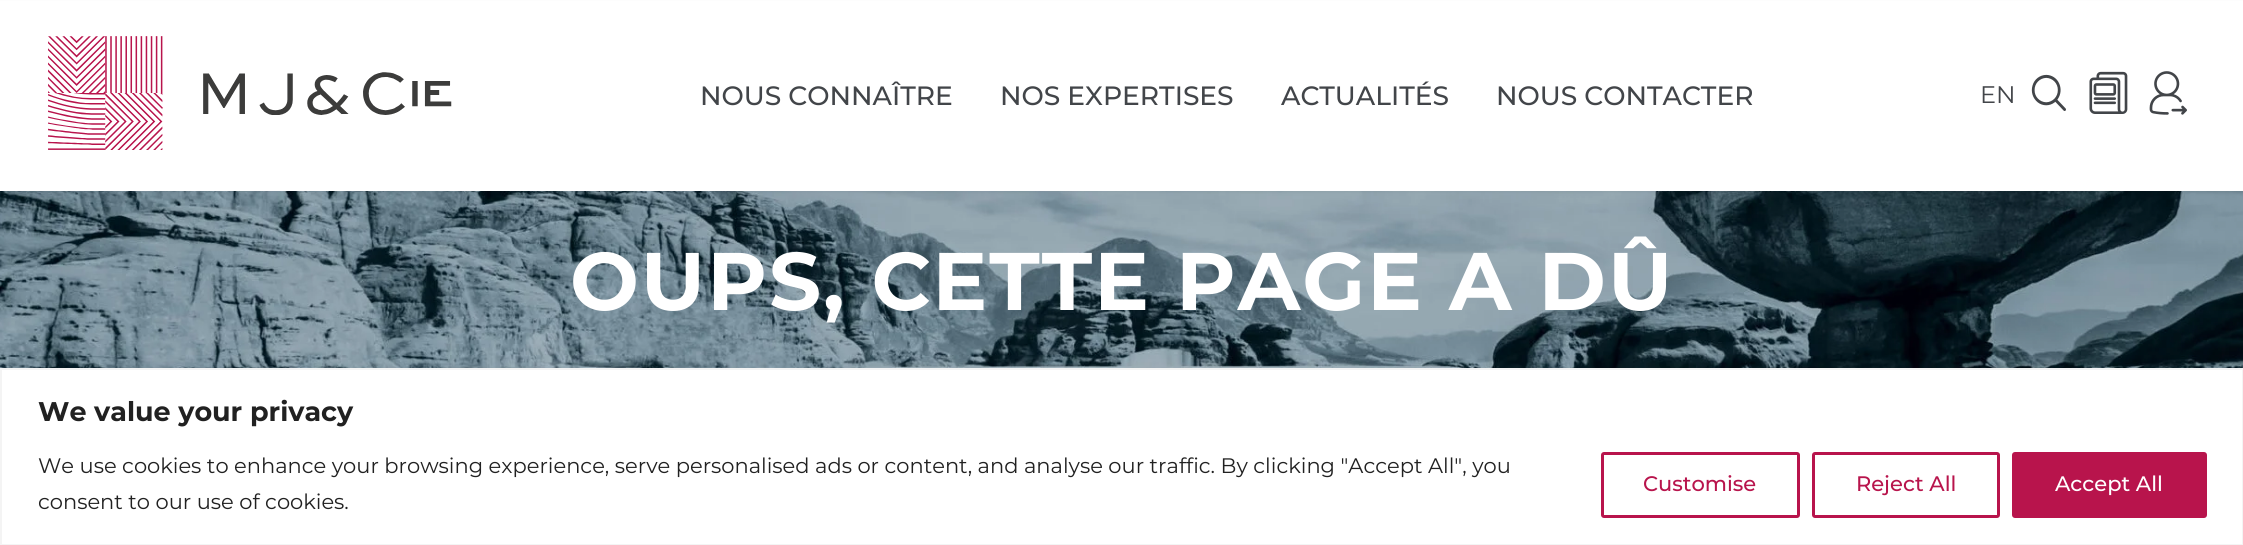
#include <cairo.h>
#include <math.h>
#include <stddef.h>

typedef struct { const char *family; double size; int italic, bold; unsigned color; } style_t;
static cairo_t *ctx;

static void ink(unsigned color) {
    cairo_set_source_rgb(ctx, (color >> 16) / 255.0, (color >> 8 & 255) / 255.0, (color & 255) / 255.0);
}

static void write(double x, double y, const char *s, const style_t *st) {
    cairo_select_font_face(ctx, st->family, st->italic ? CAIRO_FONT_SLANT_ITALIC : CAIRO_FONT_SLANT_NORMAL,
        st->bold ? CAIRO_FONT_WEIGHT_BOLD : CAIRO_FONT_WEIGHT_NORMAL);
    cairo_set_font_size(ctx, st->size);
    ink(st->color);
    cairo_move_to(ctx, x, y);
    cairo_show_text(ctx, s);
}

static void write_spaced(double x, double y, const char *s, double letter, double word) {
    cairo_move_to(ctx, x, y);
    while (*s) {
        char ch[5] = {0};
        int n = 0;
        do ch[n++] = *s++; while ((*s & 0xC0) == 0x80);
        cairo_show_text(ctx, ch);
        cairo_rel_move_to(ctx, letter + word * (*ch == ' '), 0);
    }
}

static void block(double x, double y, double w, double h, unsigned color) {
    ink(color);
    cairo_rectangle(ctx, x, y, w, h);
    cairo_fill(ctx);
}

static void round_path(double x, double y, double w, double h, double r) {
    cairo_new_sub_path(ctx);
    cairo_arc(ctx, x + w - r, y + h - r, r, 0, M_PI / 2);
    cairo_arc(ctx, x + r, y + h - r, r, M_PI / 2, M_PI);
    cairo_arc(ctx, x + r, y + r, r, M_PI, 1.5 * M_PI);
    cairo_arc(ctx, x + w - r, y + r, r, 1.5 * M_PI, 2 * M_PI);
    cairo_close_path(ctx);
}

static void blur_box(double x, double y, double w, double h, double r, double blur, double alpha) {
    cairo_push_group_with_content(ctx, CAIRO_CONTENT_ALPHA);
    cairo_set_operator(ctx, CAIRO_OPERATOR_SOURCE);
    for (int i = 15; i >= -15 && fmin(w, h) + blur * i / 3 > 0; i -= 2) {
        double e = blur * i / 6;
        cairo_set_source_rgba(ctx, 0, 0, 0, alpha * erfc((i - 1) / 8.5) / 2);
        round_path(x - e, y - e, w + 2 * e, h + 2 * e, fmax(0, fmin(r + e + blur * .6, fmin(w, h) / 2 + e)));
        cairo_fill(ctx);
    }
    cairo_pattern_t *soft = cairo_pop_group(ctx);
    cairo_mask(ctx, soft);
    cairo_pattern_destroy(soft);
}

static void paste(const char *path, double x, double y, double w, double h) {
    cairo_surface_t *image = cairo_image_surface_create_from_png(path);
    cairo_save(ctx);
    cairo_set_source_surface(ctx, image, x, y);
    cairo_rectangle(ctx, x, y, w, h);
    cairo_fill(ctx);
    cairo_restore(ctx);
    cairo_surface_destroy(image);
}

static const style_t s1 = {"Montserrat Medium", 26.5, 0, 0, 0x424549};
static const style_t s2 = {"Montserrat", 24, 0, 0, 0x424549};
static const style_t s3 = {"Montserrat", 27, 0, 1, 0x212121};
static const style_t s4 = {"Montserrat", 21, 0, 0, 0x212121};
static const style_t s5 = {"Montserrat Medium", 21, 0, 0, 0xb8144c};
static const style_t s6 = {"Montserrat Medium", 21, 0, 0, 0xffffff};

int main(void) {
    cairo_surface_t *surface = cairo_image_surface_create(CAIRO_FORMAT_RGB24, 2243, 545);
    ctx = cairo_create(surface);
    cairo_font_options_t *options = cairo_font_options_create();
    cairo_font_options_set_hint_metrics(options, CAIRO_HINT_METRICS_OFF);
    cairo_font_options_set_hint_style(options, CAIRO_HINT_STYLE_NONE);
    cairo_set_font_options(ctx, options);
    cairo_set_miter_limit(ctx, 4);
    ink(0xffffff);
    cairo_paint(ctx);
    paste("pic5.png", 0, 191, 2243, 177);
    ink(0x000000);
    blur_box(0, 2, 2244, 190, 0, 1.5, 0.05);
    block(0, 1, 2243, 190, 0xffffff);
    paste("pic1.png", 48, 36, 404, 114);
    write(700, 105, "NOUS CONNAÎTRE", &s1);
    write(1000, 105, "NOS EXPERTISES", &s1);
    write(1281, 105, "ACTUALITÉS", &s1);
    write(1496, 105, "NOUS CONTACTER", &s1);
    write(1980, 103, "EN", &s2);
    paste("pic2.png", 2031, 74, 35, 37);
    paste("pic3.png", 2089, 71, 39, 43);
    paste("pic4.png", 2149, 71, 38, 44);
    cairo_select_font_face(ctx, "Montserrat", CAIRO_FONT_SLANT_NORMAL, CAIRO_FONT_WEIGHT_BOLD);
    cairo_set_font_size(ctx, 81.6);
    ink(0xffffff);
    write_spaced(570, 310, "OUPS, CETTE PAGE A DÛ", 2, 0);
    cairo_rectangle(ctx, 1, 369, 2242, 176);
    ink(0xf4f4f4);
    cairo_stroke(ctx);
    write(38, 421, "We value your privacy", &s3);
    write(38, 473, "We use cookies to enhance your browsing experience, serve personalised ads or content, and analyse our traffic. By clicking \"Accept All\", you", &s4);
    write(38, 509, "consent to our use of cookies.", &s4);
    round_path(1602.5, 453.5, 196, 63, 1.5);
    ink(0xb8144c);
    cairo_set_line_width(ctx, 3);
    cairo_stroke(ctx);
    write(1643, 491, "Customise", &s5);
    round_path(1813.5, 453.5, 185, 63, 1.5);
    cairo_stroke(ctx);
    write(1856, 491, "Reject All", &s5);
    round_path(2013.5, 453.5, 192, 63, 1.5);
    cairo_fill_preserve(ctx);
    cairo_stroke(ctx);
    write(2055, 491, "Accept All", &s6);
    cairo_surface_write_to_png(surface, "screenshot.png");
    cairo_font_options_destroy(options);
    cairo_destroy(ctx);
    cairo_surface_destroy(surface);
    return 0;
}
